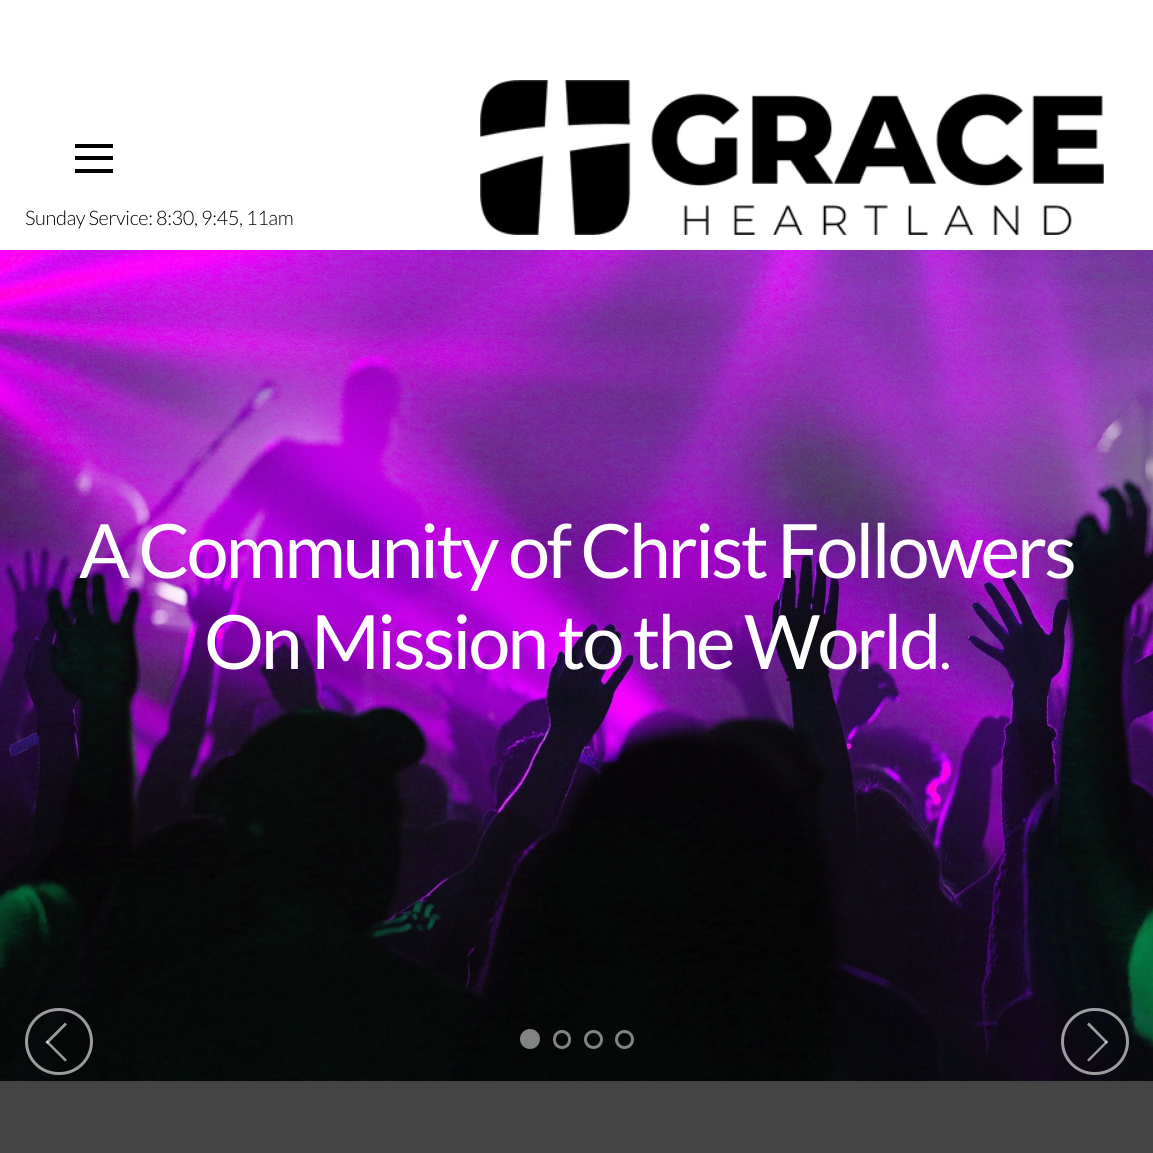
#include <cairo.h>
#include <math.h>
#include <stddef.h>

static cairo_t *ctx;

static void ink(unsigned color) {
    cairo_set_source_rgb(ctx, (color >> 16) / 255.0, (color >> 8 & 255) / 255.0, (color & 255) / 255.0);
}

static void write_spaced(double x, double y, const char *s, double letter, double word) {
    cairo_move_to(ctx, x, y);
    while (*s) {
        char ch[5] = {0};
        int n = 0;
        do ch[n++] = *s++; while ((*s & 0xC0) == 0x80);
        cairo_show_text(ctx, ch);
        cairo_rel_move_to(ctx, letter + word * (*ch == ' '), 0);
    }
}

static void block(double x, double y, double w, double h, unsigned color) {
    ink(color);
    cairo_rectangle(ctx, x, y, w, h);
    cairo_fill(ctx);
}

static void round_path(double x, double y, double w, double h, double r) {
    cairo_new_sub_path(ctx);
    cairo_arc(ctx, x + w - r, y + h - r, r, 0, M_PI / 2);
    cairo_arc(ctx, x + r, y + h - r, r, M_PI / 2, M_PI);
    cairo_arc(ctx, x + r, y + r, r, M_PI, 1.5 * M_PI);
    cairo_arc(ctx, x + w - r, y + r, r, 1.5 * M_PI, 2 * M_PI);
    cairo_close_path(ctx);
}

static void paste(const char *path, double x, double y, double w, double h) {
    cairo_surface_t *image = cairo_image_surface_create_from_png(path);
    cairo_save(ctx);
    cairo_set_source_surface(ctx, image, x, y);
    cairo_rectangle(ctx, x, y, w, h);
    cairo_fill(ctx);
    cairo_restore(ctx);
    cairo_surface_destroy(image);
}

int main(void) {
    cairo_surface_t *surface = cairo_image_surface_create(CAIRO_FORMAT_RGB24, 1153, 1153);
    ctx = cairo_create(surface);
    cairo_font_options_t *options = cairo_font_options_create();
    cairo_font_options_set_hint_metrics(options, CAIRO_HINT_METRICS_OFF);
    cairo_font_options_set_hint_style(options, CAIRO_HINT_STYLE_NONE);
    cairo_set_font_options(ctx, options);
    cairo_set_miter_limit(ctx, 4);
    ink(0xffffff);
    cairo_paint(ctx);
    block(75, 144, 38, 4, 0x000000);
    block(75, 156, 38, 4, 0x000000);
    block(75, 169, 38, 4, 0x000000);
    paste("pic1.png", 480, 80, 624, 155);
    cairo_select_font_face(ctx, "Lato Light", CAIRO_FONT_SLANT_NORMAL, CAIRO_FONT_WEIGHT_NORMAL);
    cairo_set_font_size(ctx, 20);
    write_spaced(25, 225, "Sunday Service: 8:30, 9:45, 11am", -0.4, 0);
    paste("pic2.png", 0, 250, 1153, 831);
    cairo_select_font_face(ctx, "Lato", CAIRO_FONT_SLANT_NORMAL, CAIRO_FONT_WEIGHT_NORMAL);
    cairo_set_font_size(ctx, 75);
    ink(0xffffff);
    write_spaced(79, 578, "A Community of Christ Followers", -3, 0);
    write_spaced(204, 669, "On Mission to the World", -3, 0);
    cairo_select_font_face(ctx, "Lato Light", CAIRO_FONT_SLANT_NORMAL, CAIRO_FONT_WEIGHT_NORMAL);
    write_spaced(938, 669, ".", -3, 0);
    round_path(26.5, 1009.5, 65, 64, 32);
    cairo_set_source_rgba(ctx, 1, 1, 1, 0.6);
    cairo_set_line_width(ctx, 3);
    cairo_stroke(ctx);
    cairo_new_path(ctx);
    cairo_move_to(ctx, 45.5, 1042);
    cairo_line_to(ctx, 65, 1022.5);
    cairo_line_to(ctx, 67, 1024.5);
    cairo_line_to(ctx, 47.5, 1044);
    cairo_close_path(ctx);
    cairo_fill(ctx);
    cairo_new_path(ctx);
    cairo_move_to(ctx, 45.5, 1042);
    cairo_line_to(ctx, 47.5, 1040.5);
    cairo_line_to(ctx, 67, 1060);
    cairo_line_to(ctx, 65, 1061.5);
    cairo_close_path(ctx);
    cairo_fill(ctx);
    cairo_set_source_rgba(ctx, 1, 1, 1, 0.5);
    cairo_arc(ctx, 530, 1039, 10, 0, 2 * M_PI);
    cairo_fill(ctx);
    round_path(554.5, 1031.5, 15, 16, 7.5);
    cairo_stroke(ctx);
    cairo_arc(ctx, 593.5, 1039.5, 8, 0, 2 * M_PI);
    cairo_stroke(ctx);
    cairo_arc(ctx, 624.5, 1039.5, 8, 0, 2 * M_PI);
    cairo_stroke(ctx);
    round_path(1062.5, 1009.5, 65, 64, 32);
    cairo_set_source_rgba(ctx, 1, 1, 1, 0.6);
    cairo_stroke(ctx);
    cairo_new_path(ctx);
    cairo_move_to(ctx, 1108, 1042);
    cairo_line_to(ctx, 1089, 1061.5);
    cairo_line_to(ctx, 1087, 1060);
    cairo_line_to(ctx, 1106.5, 1040.5);
    cairo_close_path(ctx);
    cairo_fill(ctx);
    cairo_new_path(ctx);
    cairo_move_to(ctx, 1108, 1042);
    cairo_line_to(ctx, 1106.5, 1044);
    cairo_line_to(ctx, 1087, 1024.5);
    cairo_line_to(ctx, 1089, 1022.5);
    cairo_close_path(ctx);
    cairo_fill(ctx);
    block(0, 1081, 1153, 72, 0x444444);
    cairo_surface_write_to_png(surface, "screenshot.png");
    cairo_font_options_destroy(options);
    cairo_destroy(ctx);
    cairo_surface_destroy(surface);
    return 0;
}
